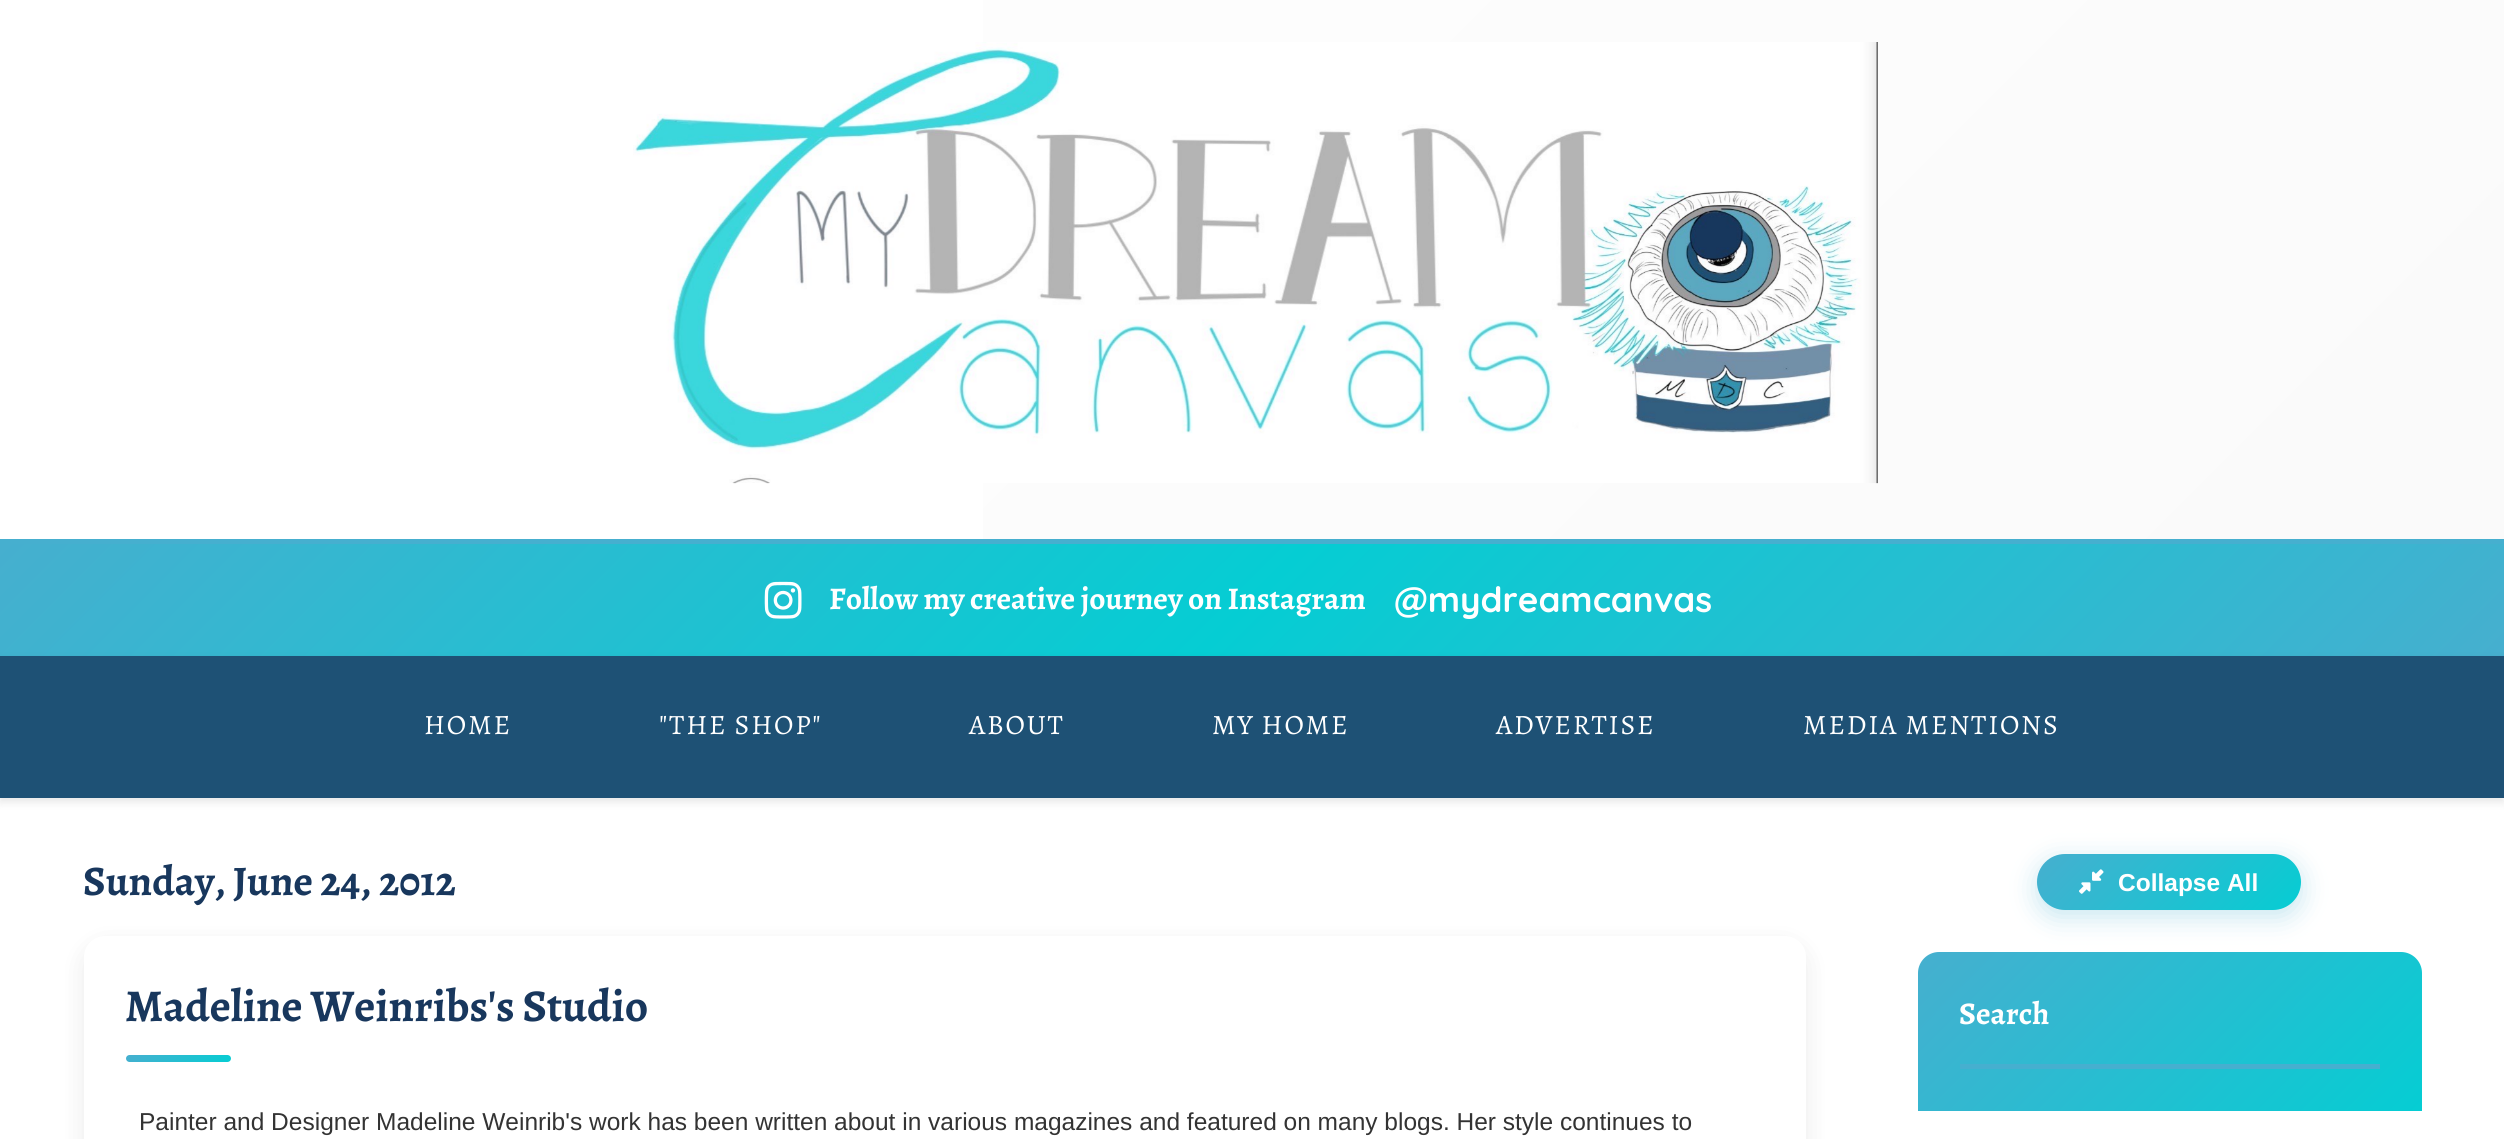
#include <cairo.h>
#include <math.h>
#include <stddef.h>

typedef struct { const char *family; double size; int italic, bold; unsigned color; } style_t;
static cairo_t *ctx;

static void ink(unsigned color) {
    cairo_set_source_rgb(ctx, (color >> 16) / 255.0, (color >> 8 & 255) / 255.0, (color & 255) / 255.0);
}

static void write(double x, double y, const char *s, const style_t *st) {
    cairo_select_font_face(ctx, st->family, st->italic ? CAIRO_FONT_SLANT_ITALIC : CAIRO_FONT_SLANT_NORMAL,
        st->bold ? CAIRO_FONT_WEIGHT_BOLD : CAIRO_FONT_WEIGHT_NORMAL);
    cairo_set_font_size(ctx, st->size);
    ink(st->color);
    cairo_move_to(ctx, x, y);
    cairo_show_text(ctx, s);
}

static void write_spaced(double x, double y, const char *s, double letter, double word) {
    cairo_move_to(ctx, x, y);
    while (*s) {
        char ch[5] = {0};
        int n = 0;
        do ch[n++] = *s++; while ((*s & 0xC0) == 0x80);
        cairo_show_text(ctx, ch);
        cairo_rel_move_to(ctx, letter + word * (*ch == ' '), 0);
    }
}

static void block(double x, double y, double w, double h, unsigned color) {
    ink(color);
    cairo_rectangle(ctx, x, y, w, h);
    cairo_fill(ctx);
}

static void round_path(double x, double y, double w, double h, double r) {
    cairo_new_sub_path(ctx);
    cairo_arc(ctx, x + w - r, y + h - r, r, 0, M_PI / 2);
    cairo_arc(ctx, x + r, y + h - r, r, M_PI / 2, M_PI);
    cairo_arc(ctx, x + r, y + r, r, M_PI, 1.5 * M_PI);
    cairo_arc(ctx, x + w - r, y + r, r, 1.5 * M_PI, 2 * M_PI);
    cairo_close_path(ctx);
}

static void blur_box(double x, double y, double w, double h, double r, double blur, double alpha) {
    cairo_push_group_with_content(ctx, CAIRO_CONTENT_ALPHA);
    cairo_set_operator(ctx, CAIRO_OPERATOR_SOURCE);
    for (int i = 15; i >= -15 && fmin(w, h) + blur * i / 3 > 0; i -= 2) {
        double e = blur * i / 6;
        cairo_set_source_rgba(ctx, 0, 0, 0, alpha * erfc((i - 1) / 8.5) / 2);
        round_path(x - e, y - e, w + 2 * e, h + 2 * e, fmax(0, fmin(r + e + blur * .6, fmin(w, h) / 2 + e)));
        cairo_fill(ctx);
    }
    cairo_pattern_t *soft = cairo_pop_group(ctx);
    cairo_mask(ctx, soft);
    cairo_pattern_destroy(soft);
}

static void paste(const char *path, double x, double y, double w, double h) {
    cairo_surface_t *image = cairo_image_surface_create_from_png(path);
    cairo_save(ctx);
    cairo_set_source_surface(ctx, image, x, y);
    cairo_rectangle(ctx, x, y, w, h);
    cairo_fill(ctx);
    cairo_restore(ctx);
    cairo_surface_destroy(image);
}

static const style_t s1 = {"Alegreya", 31.5, 0, 1, 0xffffff};
static const style_t s2 = {"Quicksand", 35, 0, 1, 0xffffff};
static const style_t s3 = {"Alegreya", 42, 0, 1, 0x18375d};
static const style_t s4 = {"Alegreya", 45.5, 0, 1, 0x18375d};
static const style_t s5 = {"Liberation Sans", 24.5, 0, 0, 0x333333};
static const style_t s6 = {"Liberation Sans", 24.5, 0, 1, 0xffffff};

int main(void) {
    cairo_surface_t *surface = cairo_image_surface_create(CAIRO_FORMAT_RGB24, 2504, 1139);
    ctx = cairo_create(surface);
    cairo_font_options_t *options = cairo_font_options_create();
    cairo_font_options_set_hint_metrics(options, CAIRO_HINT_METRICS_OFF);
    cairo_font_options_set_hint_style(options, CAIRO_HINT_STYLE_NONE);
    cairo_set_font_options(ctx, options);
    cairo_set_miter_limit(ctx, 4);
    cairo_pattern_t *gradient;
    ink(0xffffff);
    cairo_paint(ctx);
    gradient = cairo_pattern_create_linear(491, -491, 2013, 1030);
    cairo_pattern_add_color_stop_rgba(gradient, 0, 1, 1, 1, 1);
    cairo_pattern_add_color_stop_rgba(gradient, 1, 0.98, 0.98, 0.98, 1);
    cairo_set_source(ctx, gradient);
    cairo_pattern_destroy(gradient);
    cairo_rectangle(ctx, 983, 0, 1521, 539);
    cairo_fill(ctx);
    block(0, 539, 2504, 5, 0x46afcf);
    paste("pic1.png", 633, 42, 1245, 442);
    gradient = cairo_pattern_create_linear(598, -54, 1906, 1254);
    cairo_pattern_add_color_stop_rgba(gradient, 0, 0.275, 0.686, 0.812, 1);
    cairo_pattern_add_color_stop_rgba(gradient, 0.5, 0.02, 0.804, 0.827, 1);
    cairo_pattern_add_color_stop_rgba(gradient, 1, 0.275, 0.686, 0.812, 1);
    cairo_set_source(ctx, gradient);
    cairo_pattern_destroy(gradient);
    cairo_rectangle(ctx, 0, 544, 2504, 112);
    cairo_fill(ctx);
    paste("pic2.png", 764, 581, 38, 38);
    write(829, 609, "Follow my creative journey on Instagram", &s1);
    write(1394, 612, "@mydreamcanvas", &s2);
    ink(0x000000);
    blur_box(0, 660, 2504, 142, 0, 4.5, 0.1);
    block(0, 656, 2504, 142, 0x1e5175);
    cairo_select_font_face(ctx, "Alegreya", CAIRO_FONT_SLANT_NORMAL, CAIRO_FONT_WEIGHT_NORMAL);
    cairo_set_font_size(ctx, 28);
    ink(0xffffff);
    write_spaced(424, 734, "HOME", 1.75, 0);
    write_spaced(659, 734, "\"THE SHOP\"", 1.75, 0);
    write_spaced(969, 734, "ABOUT", 1.75, 0);
    write_spaced(1212, 734, "MY HOME", 1.75, 0);
    write_spaced(1496, 734, "ADVERTISE", 1.75, 0);
    write_spaced(1803, 734, "MEDIA MENTIONS", 1.75, 0);
    write(83, 895, "Sunday, June 24, 2012", &s3);
    ink(0x000000);
    blur_box(84, 945, 1722, 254, 21, 13, 0.08);
    ink(0xffffff);
    round_path(84, 936, 1722, 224, 21);
    cairo_fill(ctx);
    write(125, 1021, "Madeline Weinribs's Studio", &s4);
    gradient = cairo_pattern_create_linear(151, 1031, 207, 1087);
    cairo_pattern_add_color_stop_rgba(gradient, 0, 0.275, 0.686, 0.812, 1);
    cairo_pattern_add_color_stop_rgba(gradient, 1, 0.02, 0.804, 0.827, 1);
    cairo_set_source(ctx, gradient);
    cairo_pattern_destroy(gradient);
    round_path(126, 1055, 105, 7, 3.5);
    cairo_fill(ctx);
    write(139, 1130, "Painter and Designer Madeline Weinrib's work has been written about in various magazines and featured on many blogs. Her style continues to", &s5);
    ink(0x46afcf);
    blur_box(2037, 861, 264, 56, 28, 13, 0.3);
    gradient = cairo_pattern_create_linear(2089, 802, 2249, 962);
    cairo_pattern_add_color_stop_rgba(gradient, 0, 0.275, 0.686, 0.812, 1);
    cairo_pattern_add_color_stop_rgba(gradient, 1, 0.02, 0.804, 0.827, 1);
    cairo_set_source(ctx, gradient);
    cairo_pattern_destroy(gradient);
    round_path(2037, 854, 264, 56, 28);
    cairo_fill(ctx);
    paste("pic3.png", 2079, 869, 25, 25);
    write(2118, 891, "Collapse All", &s6);
    gradient = cairo_pattern_create_linear(2004, 866, 2336, 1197);
    cairo_pattern_add_color_stop_rgba(gradient, 0, 0.275, 0.686, 0.812, 1);
    cairo_pattern_add_color_stop_rgba(gradient, 1, 0.02, 0.804, 0.827, 1);
    cairo_set_source(ctx, gradient);
    cairo_pattern_destroy(gradient);
    cairo_new_path(ctx);
    cairo_move_to(ctx, 1939, 952);
    cairo_line_to(ctx, 2401, 952);
    cairo_curve_to(ctx, 2412.5, 952, 2422, 961.5, 2422, 973);
    cairo_line_to(ctx, 2422, 1111);
    cairo_line_to(ctx, 1918, 1111);
    cairo_line_to(ctx, 1918, 973);
    cairo_curve_to(ctx, 1918, 961.5, 1927.5, 952, 1939, 952);
    cairo_close_path(ctx);
    cairo_fill(ctx);
    block(1960, 1064, 420, 5, 0x46afcf);
    write(1959, 1024, "Search", &s1);
    cairo_surface_write_to_png(surface, "screenshot.png");
    cairo_font_options_destroy(options);
    cairo_destroy(ctx);
    cairo_surface_destroy(surface);
    return 0;
}
